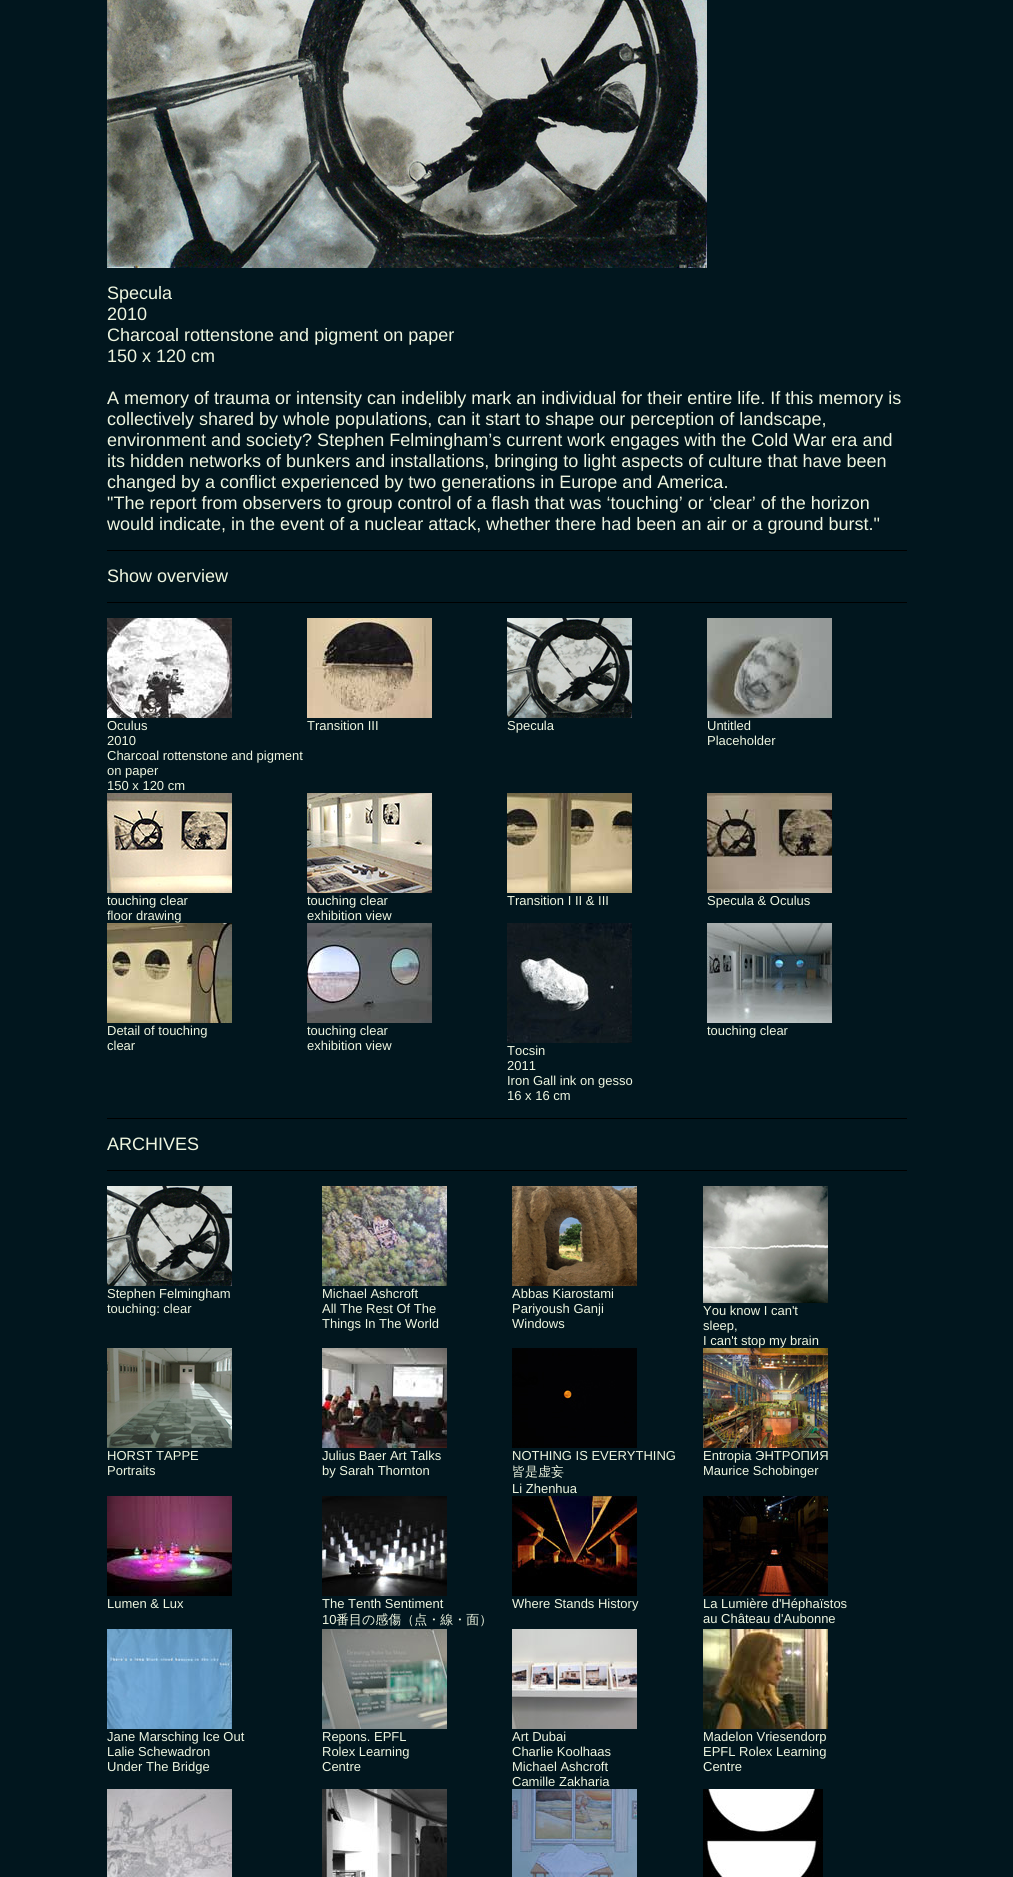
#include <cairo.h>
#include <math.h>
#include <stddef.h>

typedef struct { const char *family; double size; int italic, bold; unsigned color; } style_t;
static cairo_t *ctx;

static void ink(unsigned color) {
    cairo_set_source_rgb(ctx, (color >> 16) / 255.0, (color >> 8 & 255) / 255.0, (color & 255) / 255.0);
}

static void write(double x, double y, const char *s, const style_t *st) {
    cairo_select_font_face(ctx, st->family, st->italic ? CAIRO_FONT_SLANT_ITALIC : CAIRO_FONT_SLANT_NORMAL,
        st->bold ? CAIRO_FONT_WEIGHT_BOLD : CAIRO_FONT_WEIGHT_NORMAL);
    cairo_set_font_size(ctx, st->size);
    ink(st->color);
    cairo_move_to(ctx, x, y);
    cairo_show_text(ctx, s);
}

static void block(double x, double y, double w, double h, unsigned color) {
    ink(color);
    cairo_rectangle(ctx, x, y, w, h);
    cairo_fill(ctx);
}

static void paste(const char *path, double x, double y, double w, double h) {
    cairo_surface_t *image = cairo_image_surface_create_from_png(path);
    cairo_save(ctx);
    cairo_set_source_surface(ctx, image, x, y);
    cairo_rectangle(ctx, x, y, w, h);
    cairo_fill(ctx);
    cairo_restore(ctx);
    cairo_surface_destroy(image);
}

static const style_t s1 = {"Liberation Sans", 18, 0, 0, 0xeff6e0};
static const style_t s2 = {"Liberation Sans", 13, 0, 0, 0xeff6e0};
static const style_t s3 = {"WenQuanYi Zen Hei Medium", 13, 0, 0, 0xeff6e0};

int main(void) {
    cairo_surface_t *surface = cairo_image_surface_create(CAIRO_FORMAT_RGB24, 1013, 1877);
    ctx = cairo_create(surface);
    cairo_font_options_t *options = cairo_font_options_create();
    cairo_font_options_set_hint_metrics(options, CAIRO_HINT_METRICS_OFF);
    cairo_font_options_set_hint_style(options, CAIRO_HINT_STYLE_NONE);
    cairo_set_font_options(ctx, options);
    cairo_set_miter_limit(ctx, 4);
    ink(0x01161e);
    cairo_paint(ctx);
    paste("pic1.png", 107, 0, 600, 268);
    write(107, 299, "Specula", &s1);
    write(107, 320, "2010", &s1);
    write(107, 341, "Charcoal rottenstone and pigment on paper", &s1);
    write(107, 362, "150 x 120 cm", &s1);
    write(107, 404, "A memory of trauma or intensity can indelibly mark an individual for their entire life. If this memory is", &s1);
    write(107, 425, "collectively shared by whole populations, can it start to shape our perception of landscape,", &s1);
    write(107, 446, "environment and society? Stephen Felmingham’s current work engages with the Cold War era and", &s1);
    write(107, 467, "its hidden networks of bunkers and installations, bringing to light aspects of culture that have been", &s1);
    write(107, 488, "changed by a conflict experienced by two generations in Europe and America.", &s1);
    write(107, 509, "\"The report from observers to group control of a flash that was ‘touching’ or ‘clear’ of the horizon", &s1);
    write(107, 530, "would indicate, in the event of a nuclear attack, whether there had been an air or a ground burst.\"", &s1);
    block(107, 550, 800, 1, 0x000000);
    write(107, 582, "Show overview", &s1);
    block(107, 602, 800, 1, 0x000000);
    paste("pic2.png", 107, 618, 125, 100);
    write(107, 730, "Oculus", &s2);
    write(107, 745, "2010", &s2);
    write(107, 760, "Charcoal rottenstone and pigment", &s2);
    write(107, 775, "on paper", &s2);
    write(107, 790, "150 x 120 cm", &s2);
    paste("pic3.png", 307, 618, 125, 100);
    write(307, 730, "Transition III", &s2);
    paste("pic4.png", 507, 618, 125, 100);
    write(507, 730, "Specula", &s2);
    paste("pic5.png", 707, 618, 125, 100);
    write(707, 730, "Untitled", &s2);
    write(707, 745, "Placeholder", &s2);
    paste("pic6.png", 107, 793, 125, 100);
    write(107, 905, "touching clear", &s2);
    write(107, 920, "floor drawing", &s2);
    paste("pic7.png", 307, 793, 125, 100);
    write(307, 905, "touching clear", &s2);
    write(307, 920, "exhibition view", &s2);
    paste("pic8.png", 507, 793, 125, 100);
    write(507, 905, "Transition I II & III", &s2);
    paste("pic9.png", 707, 793, 125, 100);
    write(707, 905, "Specula & Oculus", &s2);
    paste("pic10.png", 107, 923, 125, 100);
    write(107, 1035, "Detail of touching", &s2);
    write(107, 1050, "clear", &s2);
    paste("pic11.png", 307, 923, 125, 100);
    write(307, 1035, "touching clear", &s2);
    write(307, 1050, "exhibition view", &s2);
    paste("pic12.png", 707, 923, 125, 100);
    write(707, 1035, "touching clear", &s2);
    paste("pic13.png", 507, 923, 125, 120);
    write(507, 1055, "Tocsin", &s2);
    write(507, 1070, "2011", &s2);
    write(507, 1085, "Iron Gall ink on gesso", &s2);
    write(507, 1100, "16 x 16 cm", &s2);
    block(107, 1118, 800, 1, 0x000000);
    write(107, 1150, "ARCHIVES", &s1);
    block(107, 1170, 800, 1, 0x000000);
    paste("pic4.png", 107, 1186, 125, 100);
    write(107, 1298, "Stephen Felmingham", &s2);
    write(107, 1313, "touching: clear", &s2);
    paste("pic14.png", 322, 1186, 125, 100);
    write(322, 1298, "Michael Ashcroft", &s2);
    write(322, 1313, "All The Rest Of The", &s2);
    write(322, 1328, "Things In The World", &s2);
    paste("pic15.png", 512, 1186, 125, 100);
    write(512, 1298, "Abbas Kiarostami", &s2);
    write(512, 1313, "Pariyoush Ganji", &s2);
    write(512, 1328, "Windows", &s2);
    paste("pic16.png", 703, 1186, 125, 117);
    write(703, 1315, "You know I can't", &s2);
    write(703, 1330, "sleep,", &s2);
    write(703, 1345, "I can't stop my brain", &s2);
    paste("pic17.png", 107, 1348, 125, 100);
    write(107, 1460, "HORST TAPPE", &s2);
    write(107, 1475, "Portraits", &s2);
    paste("pic18.png", 322, 1348, 125, 100);
    write(322, 1460, "Julius Baer Art Talks", &s2);
    write(322, 1475, "by Sarah Thornton", &s2);
    paste("pic19.png", 512, 1348, 125, 100);
    write(512, 1460, "NOTHING IS EVERYTHING", &s2);
    write(512, 1476, "皆是虚妄", &s3);
    write(512, 1493, "Li Zhenhua", &s2);
    paste("pic20.png", 703, 1348, 125, 100);
    write(703, 1460, "Entropia ЭНТРОПИЯ", &s2);
    write(703, 1475, "Maurice Schobinger", &s2);
    paste("pic21.png", 107, 1496, 125, 100);
    write(107, 1608, "Lumen & Lux", &s2);
    paste("pic22.png", 322, 1496, 125, 100);
    write(322, 1608, "The Tenth Sentiment", &s2);
    write(322, 1624, "10", &s2);
    write(336, 1624, "番目の感傷（点・線・面）", &s3);
    paste("pic23.png", 512, 1496, 125, 100);
    write(512, 1608, "Where Stands History", &s2);
    paste("pic24.png", 703, 1496, 125, 100);
    write(703, 1608, "La Lumière d'Héphaïstos", &s2);
    write(703, 1623, "au Château d'Aubonne", &s2);
    paste("pic25.png", 107, 1629, 125, 100);
    write(107, 1741, "Jane Marsching Ice Out", &s2);
    write(107, 1756, "Lalie Schewadron", &s2);
    write(107, 1771, "Under The Bridge", &s2);
    paste("pic26.png", 322, 1629, 125, 100);
    write(322, 1741, "Repons. EPFL", &s2);
    write(322, 1756, "Rolex Learning", &s2);
    write(322, 1771, "Centre", &s2);
    paste("pic27.png", 512, 1629, 125, 100);
    write(512, 1741, "Art Dubai", &s2);
    write(512, 1756, "Charlie Koolhaas", &s2);
    write(512, 1771, "Michael Ashcroft", &s2);
    write(512, 1786, "Camille Zakharia", &s2);
    paste("pic28.png", 703, 1629, 125, 100);
    write(703, 1741, "Madelon Vriesendorp", &s2);
    write(703, 1756, "EPFL Rolex Learning", &s2);
    write(703, 1771, "Centre", &s2);
    paste("pic29.png", 107, 1789, 125, 88);
    paste("pic30.png", 322, 1789, 125, 88);
    paste("pic31.png", 512, 1789, 125, 88);
    paste("pic32.png", 703, 1789, 120, 88);
    cairo_surface_write_to_png(surface, "screenshot.png");
    cairo_font_options_destroy(options);
    cairo_destroy(ctx);
    cairo_surface_destroy(surface);
    return 0;
}
